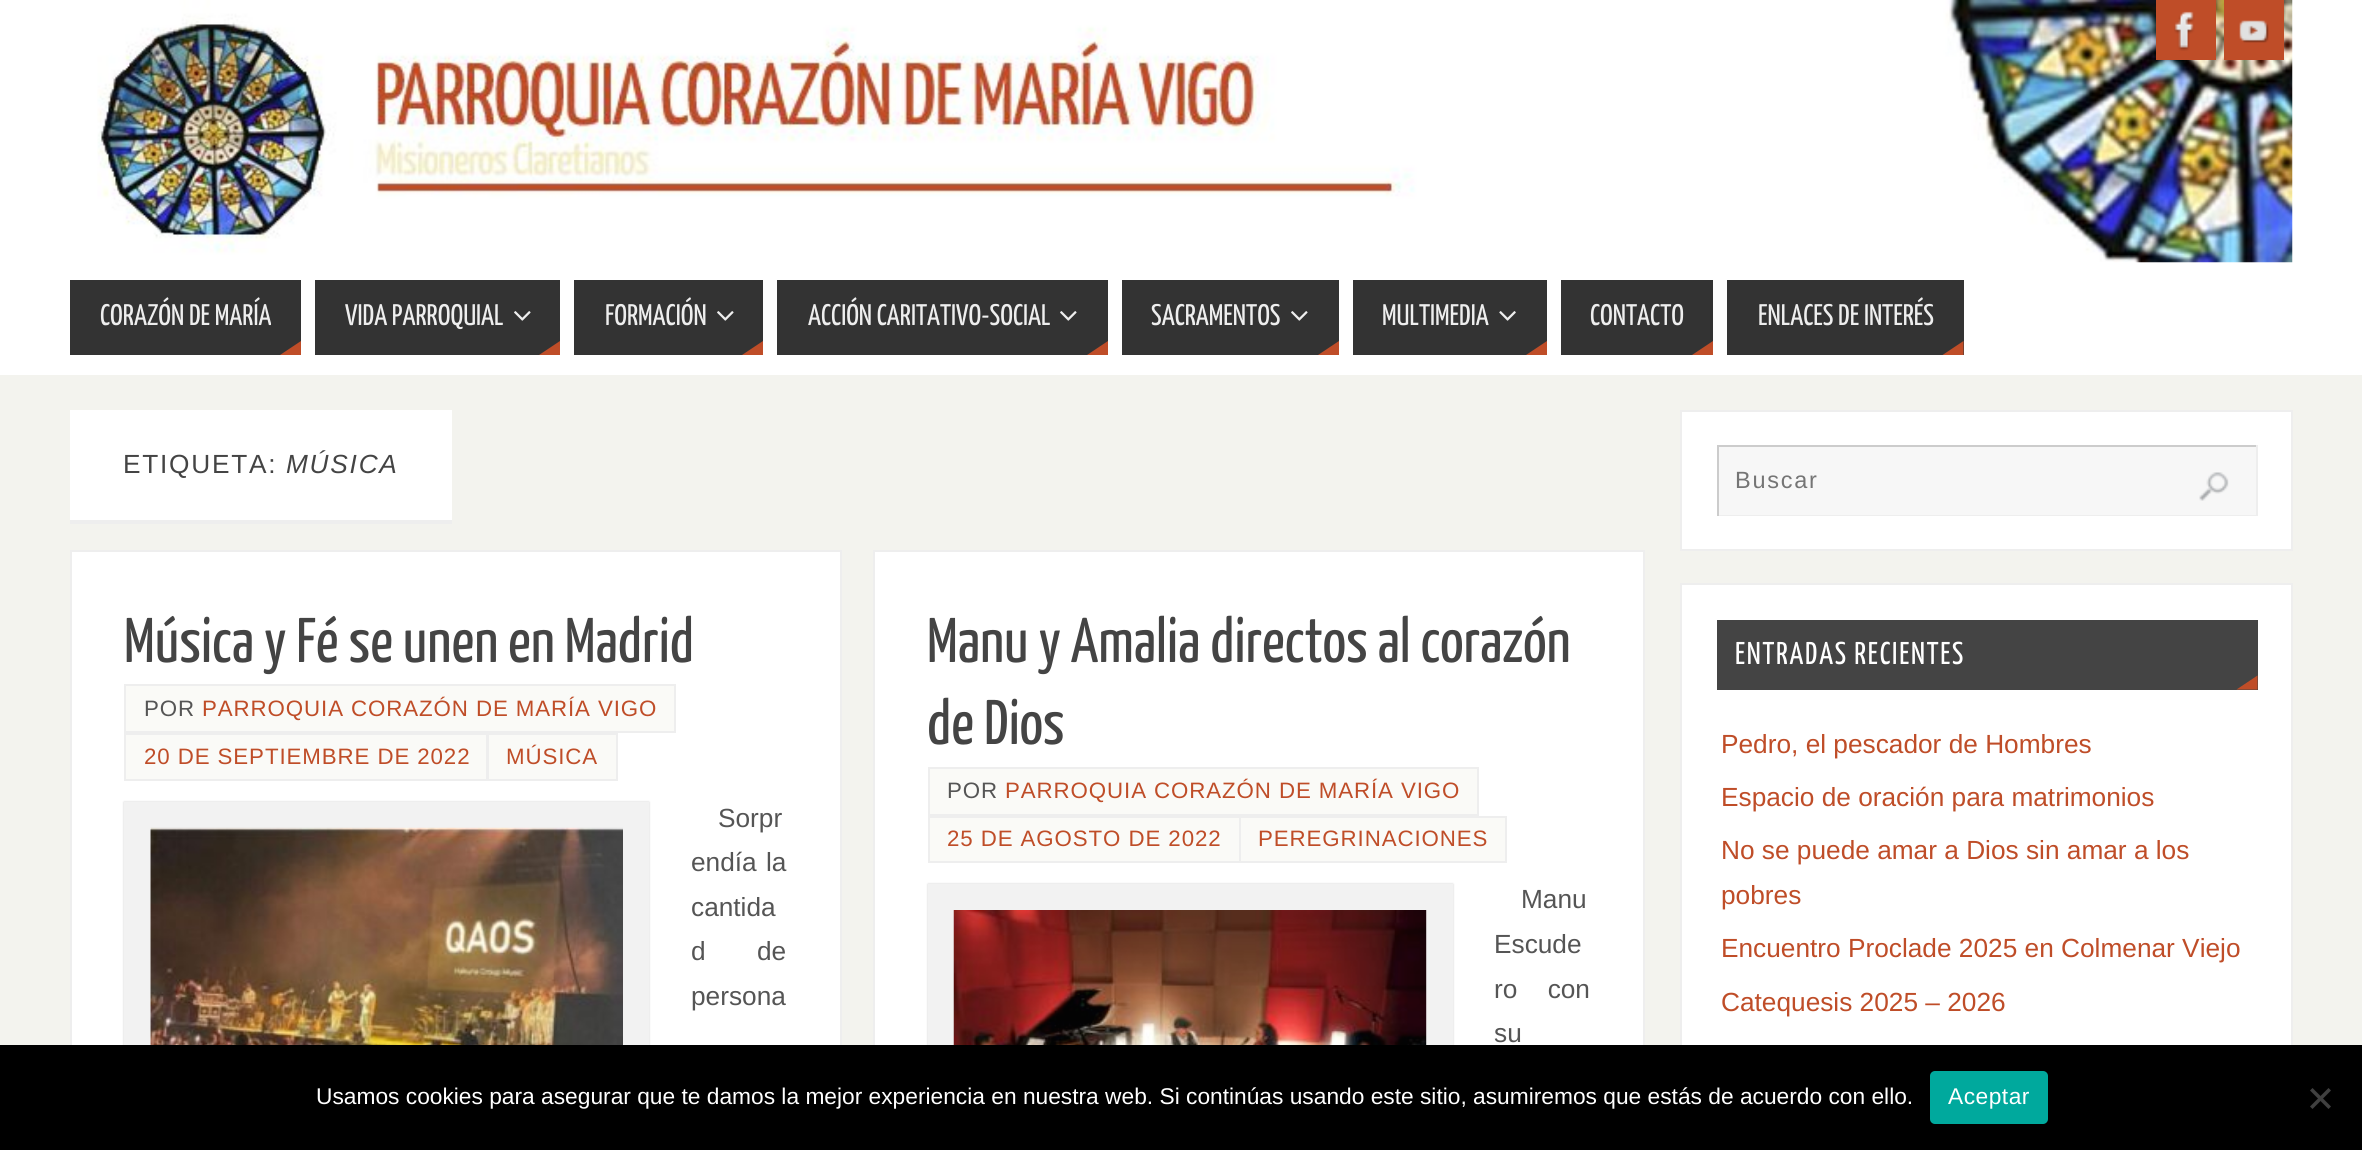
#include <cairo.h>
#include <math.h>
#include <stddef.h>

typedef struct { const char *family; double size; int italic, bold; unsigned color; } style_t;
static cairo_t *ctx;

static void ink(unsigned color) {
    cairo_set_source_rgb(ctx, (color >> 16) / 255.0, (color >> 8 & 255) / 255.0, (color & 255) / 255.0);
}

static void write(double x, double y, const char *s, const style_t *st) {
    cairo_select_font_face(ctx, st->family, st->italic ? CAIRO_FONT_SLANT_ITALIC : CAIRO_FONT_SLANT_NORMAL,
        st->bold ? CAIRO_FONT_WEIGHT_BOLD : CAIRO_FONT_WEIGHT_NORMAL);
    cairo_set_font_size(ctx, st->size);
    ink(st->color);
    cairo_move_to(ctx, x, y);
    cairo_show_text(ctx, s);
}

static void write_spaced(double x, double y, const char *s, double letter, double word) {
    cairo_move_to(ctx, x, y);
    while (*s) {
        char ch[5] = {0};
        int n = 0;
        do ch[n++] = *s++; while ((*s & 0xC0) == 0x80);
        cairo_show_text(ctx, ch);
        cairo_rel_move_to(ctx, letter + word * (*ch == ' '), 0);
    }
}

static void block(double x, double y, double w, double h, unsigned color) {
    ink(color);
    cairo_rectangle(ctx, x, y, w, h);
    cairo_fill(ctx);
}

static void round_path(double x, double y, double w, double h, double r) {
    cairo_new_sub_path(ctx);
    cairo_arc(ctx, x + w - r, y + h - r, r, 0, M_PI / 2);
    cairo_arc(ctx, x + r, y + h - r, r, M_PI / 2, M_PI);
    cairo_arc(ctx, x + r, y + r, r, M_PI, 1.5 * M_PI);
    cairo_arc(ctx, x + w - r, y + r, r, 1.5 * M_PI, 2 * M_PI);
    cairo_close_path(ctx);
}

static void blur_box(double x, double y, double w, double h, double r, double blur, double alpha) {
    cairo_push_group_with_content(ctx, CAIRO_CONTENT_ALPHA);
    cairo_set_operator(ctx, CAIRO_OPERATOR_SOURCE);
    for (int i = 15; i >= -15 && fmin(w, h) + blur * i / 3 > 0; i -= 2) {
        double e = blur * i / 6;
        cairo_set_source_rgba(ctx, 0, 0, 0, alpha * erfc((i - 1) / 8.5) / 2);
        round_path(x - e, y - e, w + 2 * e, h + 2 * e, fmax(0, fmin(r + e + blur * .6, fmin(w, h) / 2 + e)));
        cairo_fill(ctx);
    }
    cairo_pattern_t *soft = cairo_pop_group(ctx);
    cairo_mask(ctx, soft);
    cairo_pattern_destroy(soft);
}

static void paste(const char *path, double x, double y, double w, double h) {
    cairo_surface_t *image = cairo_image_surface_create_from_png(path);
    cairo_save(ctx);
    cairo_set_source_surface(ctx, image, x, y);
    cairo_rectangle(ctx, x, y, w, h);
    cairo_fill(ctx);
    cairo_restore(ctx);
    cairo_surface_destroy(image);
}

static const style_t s1 = {"Yanone Kaffeesatz", 29.75, 0, 0, 0xeeeeee};
static const style_t s2 = {"Yanone Kaffeesatz", 63, 0, 0, 0x444444};
static const style_t s3 = {"Liberation Sans", 26.25, 0, 0, 0x555555};
static const style_t s4 = {"Liberation Sans", 26.25, 0, 0, 0xbf4d28};
static const style_t s5 = {"Liberation Sans", 22.75, 0, 0, 0xffffff};

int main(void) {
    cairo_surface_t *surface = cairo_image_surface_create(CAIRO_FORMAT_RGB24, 2362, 1150);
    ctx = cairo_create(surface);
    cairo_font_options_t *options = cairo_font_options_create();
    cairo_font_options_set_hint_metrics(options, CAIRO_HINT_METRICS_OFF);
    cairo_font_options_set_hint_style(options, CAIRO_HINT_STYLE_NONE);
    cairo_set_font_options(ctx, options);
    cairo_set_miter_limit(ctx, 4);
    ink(0xf3f3ee);
    cairo_paint(ctx);
    block(0, 0, 2362, 375, 0xffffff);
    paste("pic1.png", 97, 0, 2196, 263);
    block(2156, 0, 60, 60, 0xbf4d28);
    paste("pic2.png", 2174, 11, 21, 40);
    block(2224, 0, 60, 60, 0xbf4d28);
    paste("pic3.png", 2239, 20, 30, 23);
    block(70, 280, 231, 75, 0x333333);
    write(100, 325, "CORAZÓN DE MARÍA", &s1);
    ink(0xbf4d28);
    cairo_new_path(ctx);
    cairo_move_to(ctx, 301, 355);
    cairo_line_to(ctx, 280, 355);
    cairo_line_to(ctx, 301, 341);
    cairo_close_path(ctx);
    cairo_fill(ctx);
    block(315, 280, 245, 75, 0x333333);
    write(345, 325, "VIDA PARROQUIAL", &s1);
    paste("pic4.png", 514, 311, 17, 10);
    ink(0xbf4d28);
    cairo_new_path(ctx);
    cairo_move_to(ctx, 560, 355);
    cairo_line_to(ctx, 539, 355);
    cairo_line_to(ctx, 560, 341);
    cairo_close_path(ctx);
    cairo_fill(ctx);
    block(574, 280, 189, 75, 0x333333);
    write(605, 325, "FORMACIÓN", &s1);
    paste("pic4.png", 717, 311, 17, 10);
    ink(0xbf4d28);
    cairo_new_path(ctx);
    cairo_move_to(ctx, 763, 355);
    cairo_line_to(ctx, 742, 355);
    cairo_line_to(ctx, 763, 341);
    cairo_close_path(ctx);
    cairo_fill(ctx);
    block(777, 280, 331, 75, 0x333333);
    write(808, 325, "ACCIÓN CARITATIVO-SOCIAL", &s1);
    paste("pic4.png", 1060, 311, 17, 10);
    ink(0xbf4d28);
    cairo_new_path(ctx);
    cairo_move_to(ctx, 1108, 355);
    cairo_line_to(ctx, 1087, 355);
    cairo_line_to(ctx, 1108, 341);
    cairo_close_path(ctx);
    cairo_fill(ctx);
    block(1122, 280, 217, 75, 0x333333);
    write(1151, 325, "SACRAMENTOS", &s1);
    paste("pic4.png", 1291, 311, 17, 10);
    ink(0xbf4d28);
    cairo_new_path(ctx);
    cairo_move_to(ctx, 1339, 355);
    cairo_line_to(ctx, 1318, 355);
    cairo_line_to(ctx, 1339, 341);
    cairo_close_path(ctx);
    cairo_fill(ctx);
    block(1353, 280, 194, 75, 0x333333);
    write(1382, 325, "MULTIMEDIA", &s1);
    paste("pic5.png", 1499, 311, 17, 10);
    ink(0xbf4d28);
    cairo_new_path(ctx);
    cairo_move_to(ctx, 1547, 355);
    cairo_line_to(ctx, 1526, 355);
    cairo_line_to(ctx, 1547, 341);
    cairo_close_path(ctx);
    cairo_fill(ctx);
    block(1561, 280, 152, 75, 0x333333);
    write(1590, 325, "CONTACTO", &s1);
    ink(0xbf4d28);
    cairo_new_path(ctx);
    cairo_move_to(ctx, 1713, 355);
    cairo_line_to(ctx, 1692, 355);
    cairo_line_to(ctx, 1713, 341);
    cairo_close_path(ctx);
    cairo_fill(ctx);
    block(1727, 280, 237, 75, 0x333333);
    write(1758, 325, "ENLACES DE INTERÉS", &s1);
    ink(0xbf4d28);
    cairo_new_path(ctx);
    cairo_move_to(ctx, 1963.5, 355);
    cairo_line_to(ctx, 1942.5, 355);
    cairo_line_to(ctx, 1963.5, 341);
    cairo_close_path(ctx);
    cairo_fill(ctx);
    block(70, 410, 382, 110, 0xffffff);
    block(70, 520, 382, 4, 0xeeeeee);
    cairo_select_font_face(ctx, "Liberation Sans", CAIRO_FONT_SLANT_NORMAL, CAIRO_FONT_WEIGHT_NORMAL);
    cairo_set_font_size(ctx, 26.25);
    ink(0x444444);
    write_spaced(123, 473, "ETIQUETA:", 1.75, 0);
    cairo_select_font_face(ctx, "Liberation Sans", CAIRO_FONT_SLANT_ITALIC, CAIRO_FONT_WEIGHT_NORMAL);
    write_spaced(286, 473, "MÚSICA", 1.75, 0);
    block(72, 552, 768, 493, 0xffffff);
    cairo_rectangle(ctx, 71, 551, 770, 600);
    ink(0xeeeeee);
    cairo_stroke(ctx);
    write(124, 662, "Música y Fé se unen en Madrid", &s2);
    ink(0xfafaf7);
    cairo_rectangle(ctx, 125, 685, 550, 47);
    cairo_fill_preserve(ctx);
    ink(0xeeeeee);
    cairo_stroke(ctx);
    cairo_select_font_face(ctx, "Liberation Sans", CAIRO_FONT_SLANT_NORMAL, CAIRO_FONT_WEIGHT_NORMAL);
    cairo_set_font_size(ctx, 22.3);
    ink(0x555555);
    write_spaced(144, 716, "POR", 0.9, 0);
    ink(0xbf4d28);
    write_spaced(202, 716, "PARROQUIA CORAZÓN DE MARÍA VIGO", 0.9, 0);
    ink(0xfafaf7);
    cairo_rectangle(ctx, 125, 734, 362, 46);
    cairo_fill_preserve(ctx);
    ink(0xeeeeee);
    cairo_stroke(ctx);
    ink(0xbf4d28);
    write_spaced(144, 764, "20 DE SEPTIEMBRE DE 2022", 0.9, 0);
    ink(0xfafaf7);
    cairo_rectangle(ctx, 488, 734, 129, 46);
    cairo_fill_preserve(ctx);
    ink(0xeeeeee);
    cairo_stroke(ctx);
    ink(0xbf4d28);
    write_spaced(506, 764, "MÚSICA", 0.9, 0);
    cairo_save(ctx);
    cairo_set_fill_rule(ctx, CAIRO_FILL_RULE_EVEN_ODD);
    cairo_new_path(ctx);
    cairo_move_to(ctx, 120, 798);
    cairo_line_to(ctx, 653, 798);
    cairo_line_to(ctx, 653, 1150);
    cairo_line_to(ctx, 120, 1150);
    cairo_close_path(ctx);
    cairo_move_to(ctx, 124, 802);
    cairo_line_to(ctx, 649, 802);
    cairo_line_to(ctx, 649, 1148);
    cairo_line_to(ctx, 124, 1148);
    cairo_close_path(ctx);
    cairo_clip(ctx);
    ink(0xcdcdcd);
    blur_box(124, 802, 525, 346, 0, 1, 1);
    cairo_restore(ctx);
    cairo_rectangle(ctx, 137, 815, 499, 320);
    ink(0xf2f2f2);
    cairo_set_line_width(ctx, 26);
    cairo_stroke(ctx);
    paste("pic6.png", 150, 827, 473, 218);
    write(718, 827, "Sorpr", &s3);
    write_spaced(691, 871, "endía la", 0, 2);
    write(691, 916, "cantida", &s3);
    write_spaced(691, 960, "d de", 0, 44);
    write(691, 1005, "persona", &s3);
    block(875, 552, 768, 493, 0xffffff);
    cairo_rectangle(ctx, 874, 551, 770, 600);
    ink(0xeeeeee);
    cairo_set_line_width(ctx, 2);
    cairo_stroke(ctx);
    write(927, 662, "Manu y Amalia directos al corazón", &s2);
    write(927, 744, "de Dios", &s2);
    ink(0xfafaf7);
    cairo_rectangle(ctx, 929, 768, 549, 47);
    cairo_fill_preserve(ctx);
    ink(0xeeeeee);
    cairo_stroke(ctx);
    cairo_select_font_face(ctx, "Liberation Sans", CAIRO_FONT_SLANT_NORMAL, CAIRO_FONT_WEIGHT_NORMAL);
    cairo_set_font_size(ctx, 22.3);
    ink(0x555555);
    write_spaced(947, 798, "POR", 0.9, 0);
    ink(0xbf4d28);
    write_spaced(1005, 798, "PARROQUIA CORAZÓN DE MARÍA VIGO", 0.9, 0);
    ink(0xfafaf7);
    cairo_rectangle(ctx, 929, 817, 311, 45);
    cairo_fill_preserve(ctx);
    ink(0xeeeeee);
    cairo_stroke(ctx);
    ink(0xbf4d28);
    write_spaced(947, 846, "25 DE AGOSTO DE 2022", 0.9, 0);
    ink(0xfafaf7);
    cairo_rectangle(ctx, 1240, 817, 266, 45);
    cairo_fill_preserve(ctx);
    ink(0xeeeeee);
    cairo_stroke(ctx);
    ink(0xbf4d28);
    write_spaced(1258, 846, "PEREGRINACIONES", 0.9, 0);
    cairo_save(ctx);
    cairo_set_fill_rule(ctx, CAIRO_FILL_RULE_EVEN_ODD);
    cairo_new_path(ctx);
    cairo_move_to(ctx, 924, 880);
    cairo_line_to(ctx, 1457, 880);
    cairo_line_to(ctx, 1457, 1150);
    cairo_line_to(ctx, 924, 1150);
    cairo_close_path(ctx);
    cairo_move_to(ctx, 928, 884);
    cairo_line_to(ctx, 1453, 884);
    cairo_line_to(ctx, 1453, 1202);
    cairo_line_to(ctx, 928, 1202);
    cairo_close_path(ctx);
    cairo_clip(ctx);
    ink(0xcdcdcd);
    blur_box(928, 884, 525, 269, 0, 1, 1);
    cairo_restore(ctx);
    cairo_rectangle(ctx, 941, 897, 499, 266);
    ink(0xf2f2f2);
    cairo_set_line_width(ctx, 26);
    cairo_stroke(ctx);
    paste("pic7.png", 953, 910, 474, 135);
    write(1521, 908, "Manu", &s3);
    write(1494, 953, "Escude", &s3);
    write_spaced(1494, 998, "ro con", 0, 23);
    write(1494, 1042, "su", &s3);
    ink(0xffffff);
    cairo_rectangle(ctx, 1681, 411, 611, 139);
    cairo_fill_preserve(ctx);
    ink(0xeeeeee);
    cairo_set_line_width(ctx, 2);
    cairo_stroke(ctx);
    block(1719, 447, 537, 68, 0xf7f7f7);
    block(1717, 445, 541, 2, 0xcccccc);
    block(2256, 445, 2, 71, 0xeeeeee);
    block(1717, 515, 541, 1, 0xeeeeee);
    block(1717, 445, 2, 71, 0xcccccc);
    cairo_set_font_size(ctx, 23.5);
    ink(0x757575);
    write_spaced(1735, 488, "Buscar", 1.75, 0);
    paste("pic8.png", 2199, 472, 30, 29);
    block(1682, 585, 609, 460, 0xffffff);
    cairo_rectangle(ctx, 1681, 584, 611, 484);
    ink(0xeeeeee);
    cairo_stroke(ctx);
    block(1717, 620, 541, 70, 0x444444);
    cairo_select_font_face(ctx, "Yanone Kaffeesatz", CAIRO_FONT_SLANT_NORMAL, CAIRO_FONT_WEIGHT_NORMAL);
    cairo_set_font_size(ctx, 31.5);
    ink(0xffffff);
    write_spaced(1735, 664, "ENTRADAS RECIENTES", 1.75, 0);
    ink(0xbf4d28);
    cairo_new_path(ctx);
    cairo_move_to(ctx, 2257.5, 689.5);
    cairo_line_to(ctx, 2236.5, 689.5);
    cairo_line_to(ctx, 2257.5, 675.5);
    cairo_close_path(ctx);
    cairo_fill(ctx);
    write(1721, 753, "Pedro, el pescador de Hombres", &s4);
    write(1721, 806, "Espacio de oración para matrimonios", &s4);
    write(1721, 859, "No se puede amar a Dios sin amar a los", &s4);
    write(1721, 904, "pobres", &s4);
    write(1721, 957, "Encuentro Proclade 2025 en Colmenar Viejo", &s4);
    write(1721, 1011, "Catequesis 2025 – 2026", &s4);
    block(0, 1045, 2362, 105, 0x000000);
    write(316, 1104, "Usamos cookies para asegurar que te damos la mejor experiencia en nuestra web. Si continúas usando este sitio, asumiremos que estás de acuerdo con ello.", &s5);
    ink(0x00a99d);
    round_path(1930, 1071, 118, 53, 5);
    cairo_fill(ctx);
    ink(0xffffff);
    write_spaced(1948, 1104, "Aceptar", 0.5, 0);
    ink(0x404040);
    cairo_new_path(ctx);
    cairo_move_to(ctx, 2328.5, 1088);
    cairo_line_to(ctx, 2331, 1090.5);
    cairo_line_to(ctx, 2312.5, 1109);
    cairo_line_to(ctx, 2310, 1106.5);
    cairo_close_path(ctx);
    cairo_fill(ctx);
    cairo_new_path(ctx);
    cairo_move_to(ctx, 2310, 1090.5);
    cairo_line_to(ctx, 2312.5, 1088);
    cairo_line_to(ctx, 2331, 1106.5);
    cairo_line_to(ctx, 2328.5, 1109);
    cairo_close_path(ctx);
    cairo_fill(ctx);
    cairo_surface_write_to_png(surface, "screenshot.png");
    cairo_font_options_destroy(options);
    cairo_destroy(ctx);
    cairo_surface_destroy(surface);
    return 0;
}
